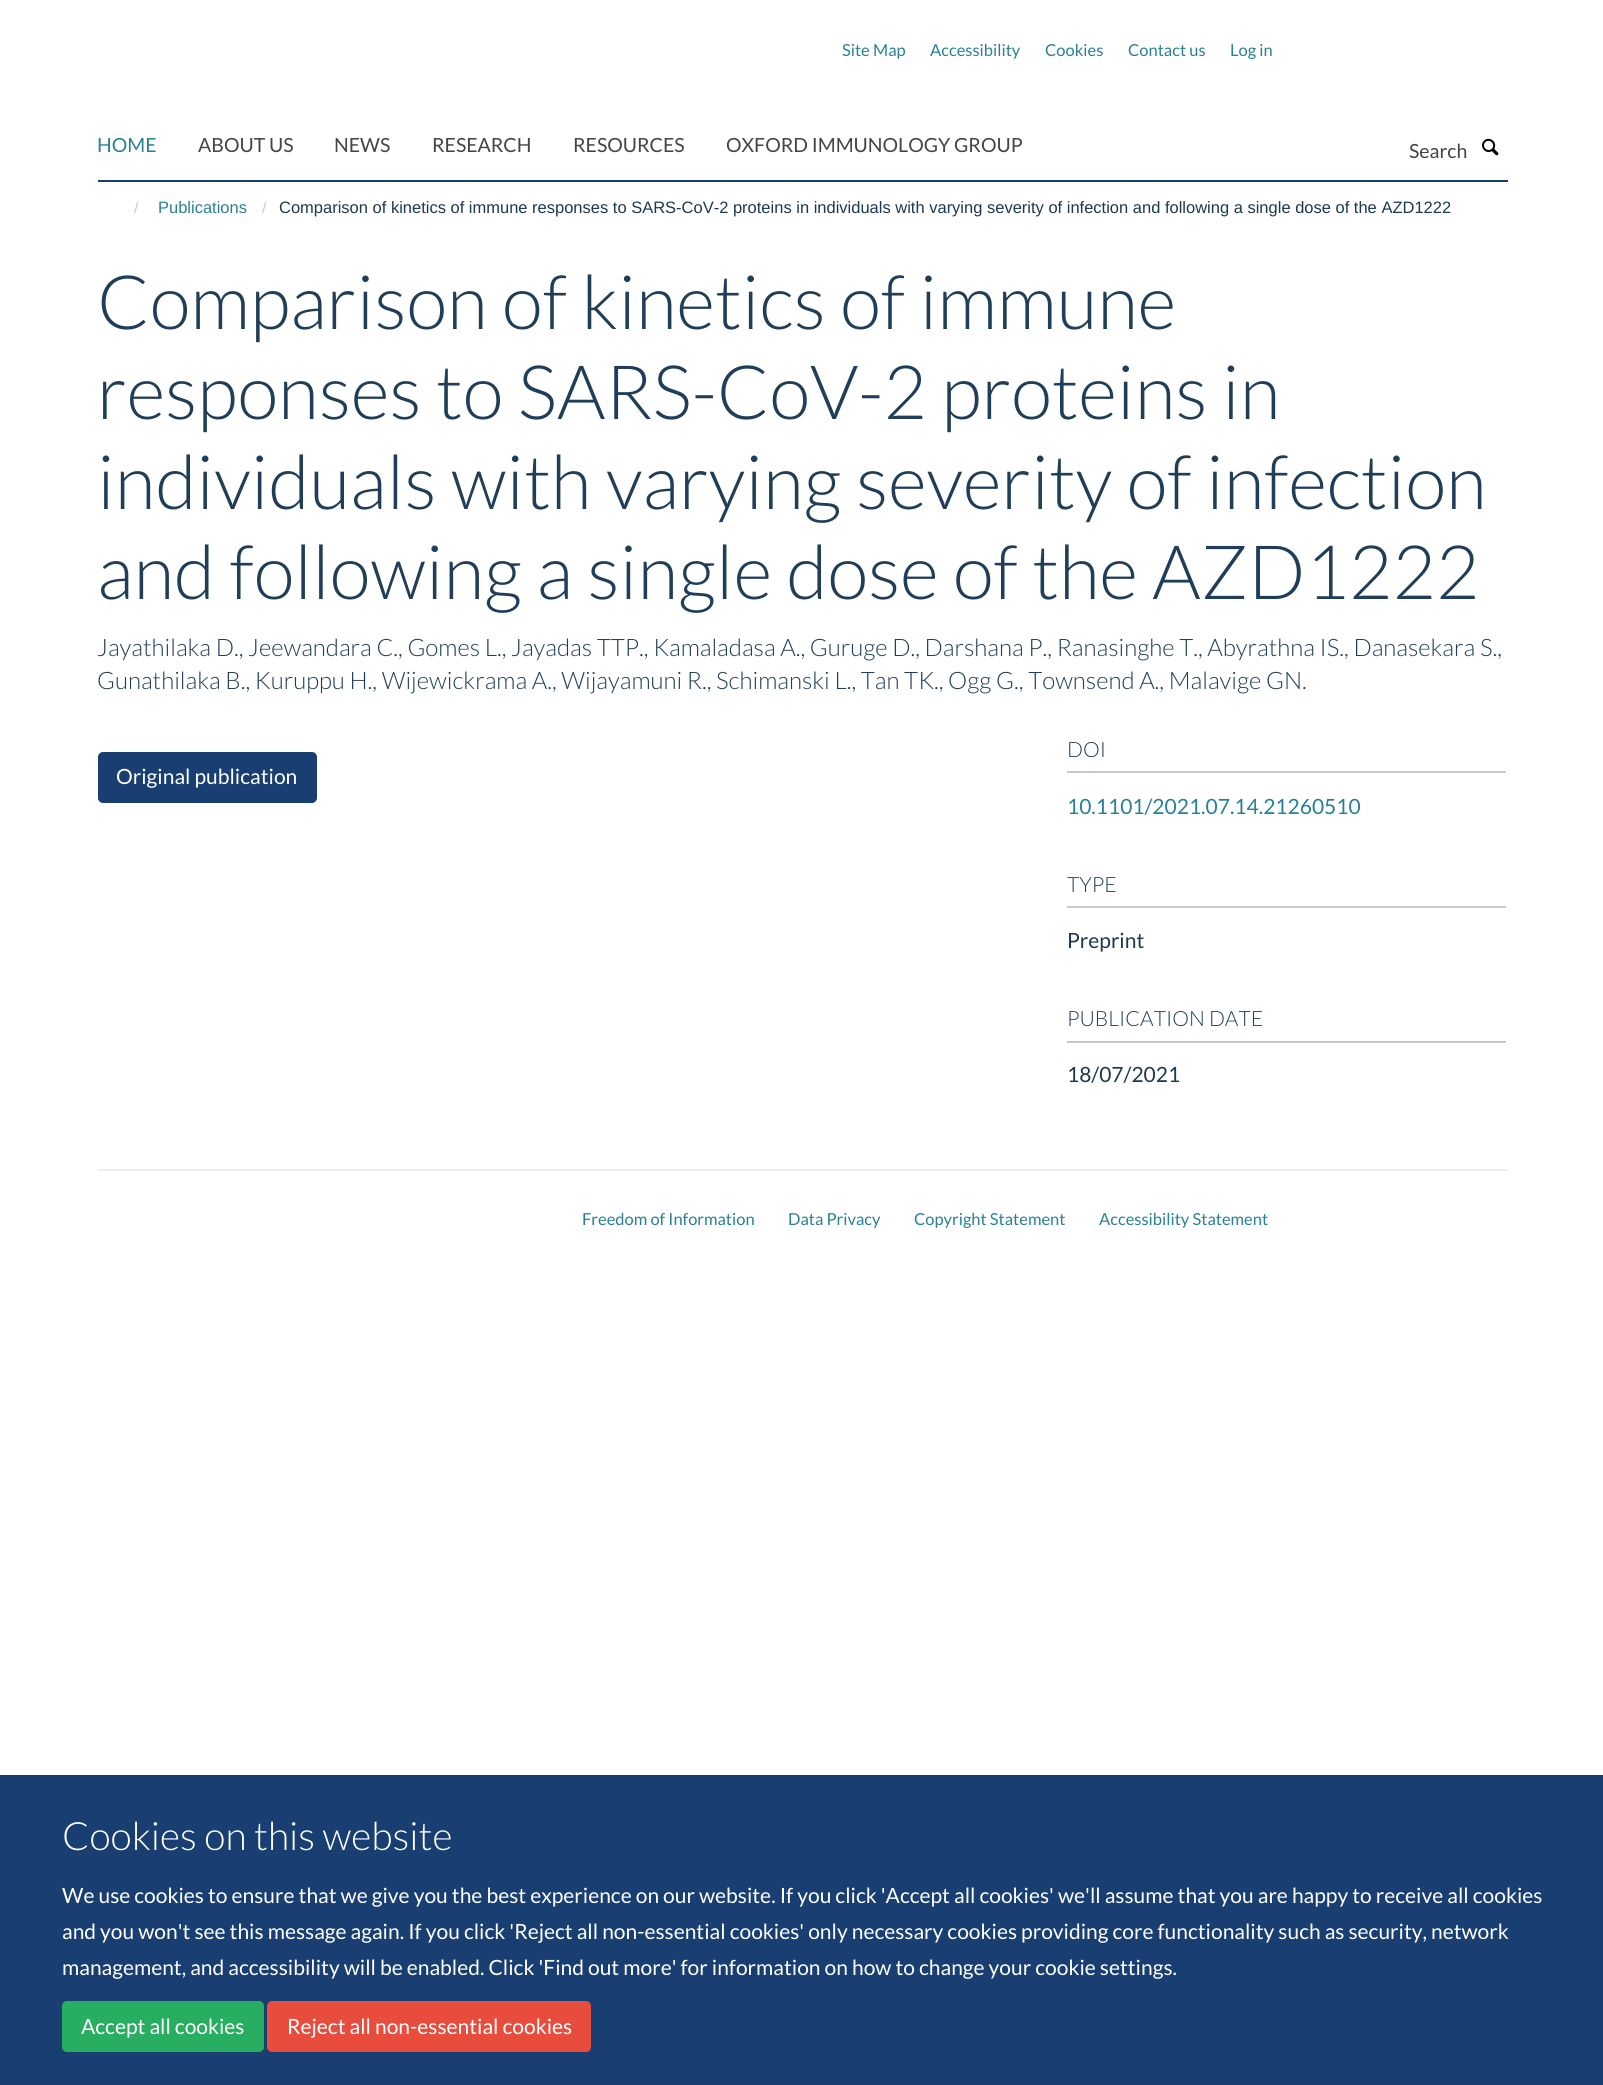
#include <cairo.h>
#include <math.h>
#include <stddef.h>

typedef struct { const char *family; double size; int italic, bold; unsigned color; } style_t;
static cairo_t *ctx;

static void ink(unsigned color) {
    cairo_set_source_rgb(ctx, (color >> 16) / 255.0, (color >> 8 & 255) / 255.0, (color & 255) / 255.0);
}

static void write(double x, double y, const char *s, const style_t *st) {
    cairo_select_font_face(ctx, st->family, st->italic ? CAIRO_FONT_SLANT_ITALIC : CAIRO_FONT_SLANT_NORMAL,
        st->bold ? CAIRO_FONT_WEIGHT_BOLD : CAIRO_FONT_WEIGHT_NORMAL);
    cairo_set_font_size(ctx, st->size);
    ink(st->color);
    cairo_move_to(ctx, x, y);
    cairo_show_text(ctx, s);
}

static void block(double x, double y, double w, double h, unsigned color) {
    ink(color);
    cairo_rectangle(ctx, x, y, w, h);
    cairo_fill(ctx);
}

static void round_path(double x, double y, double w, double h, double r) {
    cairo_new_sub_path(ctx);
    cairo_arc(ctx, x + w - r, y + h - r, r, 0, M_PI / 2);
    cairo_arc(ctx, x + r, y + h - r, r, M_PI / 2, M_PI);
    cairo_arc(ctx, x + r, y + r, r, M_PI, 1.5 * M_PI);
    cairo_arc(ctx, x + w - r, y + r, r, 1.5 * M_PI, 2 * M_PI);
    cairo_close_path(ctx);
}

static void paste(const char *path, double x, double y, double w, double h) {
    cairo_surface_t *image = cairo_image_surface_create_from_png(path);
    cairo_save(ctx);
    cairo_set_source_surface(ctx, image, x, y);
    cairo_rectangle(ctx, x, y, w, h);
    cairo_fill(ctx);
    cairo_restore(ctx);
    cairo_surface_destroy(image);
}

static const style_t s1 = {"Lato", 16.5, 0, 0, 0x298096};
static const style_t s2 = {"Lato", 19.5, 0, 0, 0x298096};
static const style_t s3 = {"Lato", 19.5, 0, 0, 0x444444};
static const style_t s4 = {"Liberation Sans", 16.5, 0, 0, 0xcccccc};
static const style_t s5 = {"Liberation Sans", 16.5, 0, 0, 0x298096};
static const style_t s6 = {"Liberation Sans", 16.5, 0, 0, 0x1d3850};
static const style_t s7 = {"Lato Light", 75, 0, 0, 0x203e58};
static const style_t s8 = {"Lato Light", 24, 0, 0, 0x203e58};
static const style_t s9 = {"Lato", 21, 0, 0, 0xffffff};
static const style_t s10 = {"Lato Light", 21, 0, 0, 0x203e58};
static const style_t s11 = {"Lato", 21, 0, 0, 0x298096};
static const style_t s12 = {"Lato", 21, 0, 0, 0x1d3850};
static const style_t s13 = {"Lato Light", 39, 0, 0, 0xffffff};

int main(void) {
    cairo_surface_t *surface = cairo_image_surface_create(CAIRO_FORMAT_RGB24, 1603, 2085);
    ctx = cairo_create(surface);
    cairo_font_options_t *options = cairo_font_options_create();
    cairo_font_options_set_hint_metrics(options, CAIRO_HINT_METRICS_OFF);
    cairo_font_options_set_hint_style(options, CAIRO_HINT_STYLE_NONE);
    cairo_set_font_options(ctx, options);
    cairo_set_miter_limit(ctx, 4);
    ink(0xffffff);
    cairo_paint(ctx);
    write(842, 56, "Site Map", &s1);
    write(930, 56, "Accessibility", &s1);
    write(1045, 56, "Cookies", &s1);
    write(1128, 56, "Contact us", &s1);
    write(1230, 56, "Log in", &s1);
    block(98, 180, 1410, 2, 0x193e72);
    write(97, 152, "HOME", &s2);
    write(198, 152, "ABOUT US", &s3);
    write(334, 152, "NEWS", &s3);
    write(432, 152, "RESEARCH", &s3);
    write(573, 152, "RESOURCES", &s3);
    write(726, 152, "OXFORD IMMUNOLOGY GROUP", &s3);
    write(1409, 158, "Search", &s3);
    paste("pic1.png", 1482, 138, 17, 18);
    write(134, 213, "/", &s4);
    write(158, 213, "Publications", &s5);
    write(262, 213, "/", &s4);
    write(279, 213, "Comparison of kinetics of immune responses to SARS-CoV-2 proteins in individuals with varying severity of infection and following a single dose of the AZD1222", &s6);
    write(97, 329, "Comparison of kinetics of immune", &s7);
    write(97, 419, "responses to SARS-CoV-2 proteins in", &s7);
    write(97, 509, "individuals with varying severity of infection", &s7);
    write(97, 599, "and following a single dose of the AZD1222", &s7);
    write(97, 656, "Jayathilaka D., Jeewandara C., Gomes L., Jayadas TTP., Kamaladasa A., Guruge D., Darshana P., Ranasinghe T., Abyrathna IS., Danasekara S.,", &s8);
    write(97, 689, "Gunathilaka B., Kuruppu H., Wijewickrama A., Wijayamuni R., Schimanski L., Tan TK., Ogg G., Townsend A., Malavige GN.", &s8);
    ink(0x193e72);
    round_path(99, 753, 217, 49, 4);
    cairo_fill_preserve(ctx);
    cairo_stroke(ctx);
    write(116, 784, "Original publication", &s9);
    block(1067, 771, 439, 2, 0xc6cacf);
    write(1067, 757, "DOI", &s10);
    write(1067, 814, "10.1101/2021.07.14.21260510", &s11);
    block(1067, 906, 439, 2, 0xc6cacf);
    write(1067, 892, "TYPE", &s10);
    write(1067, 948, "Preprint", &s12);
    block(1067, 1041, 439, 2, 0xc6cacf);
    write(1067, 1026, "PUBLICATION DATE", &s10);
    write(1067, 1082, "18/07/2021", &s12);
    block(98, 1169, 1410, 2, 0xeeeeee);
    write(582, 1225, "Freedom of Information", &s1);
    write(788, 1225, "Data Privacy", &s1);
    write(914, 1225, "Copyright Statement", &s1);
    write(1099, 1225, "Accessibility Statement", &s1);
    block(0, 1775, 1603, 310, 0x193e72);
    write(62, 1850, "Cookies on this website", &s13);
    write(62, 1903, "We use cookies to ensure that we give you the best experience on our website. If you click 'Accept all cookies' we'll assume that you are happy to receive all cookies", &s9);
    write(62, 1939, "and you won't see this message again. If you click 'Reject all non-essential cookies' only necessary cookies providing core functionality such as security, network", &s9);
    write(62, 1975, "management, and accessibility will be enabled. Click 'Find out more' for information on how to change your cookie settings.", &s9);
    ink(0x27ae60);
    round_path(63, 2002, 200, 49, 4);
    cairo_fill_preserve(ctx);
    cairo_stroke(ctx);
    write(81, 2034, "Accept all cookies", &s9);
    ink(0xe74c3c);
    round_path(268, 2002, 322, 49, 4);
    cairo_fill_preserve(ctx);
    cairo_stroke(ctx);
    write(287, 2034, "Reject all non-essential cookies", &s9);
    cairo_surface_write_to_png(surface, "screenshot.png");
    cairo_font_options_destroy(options);
    cairo_destroy(ctx);
    cairo_surface_destroy(surface);
    return 0;
}
